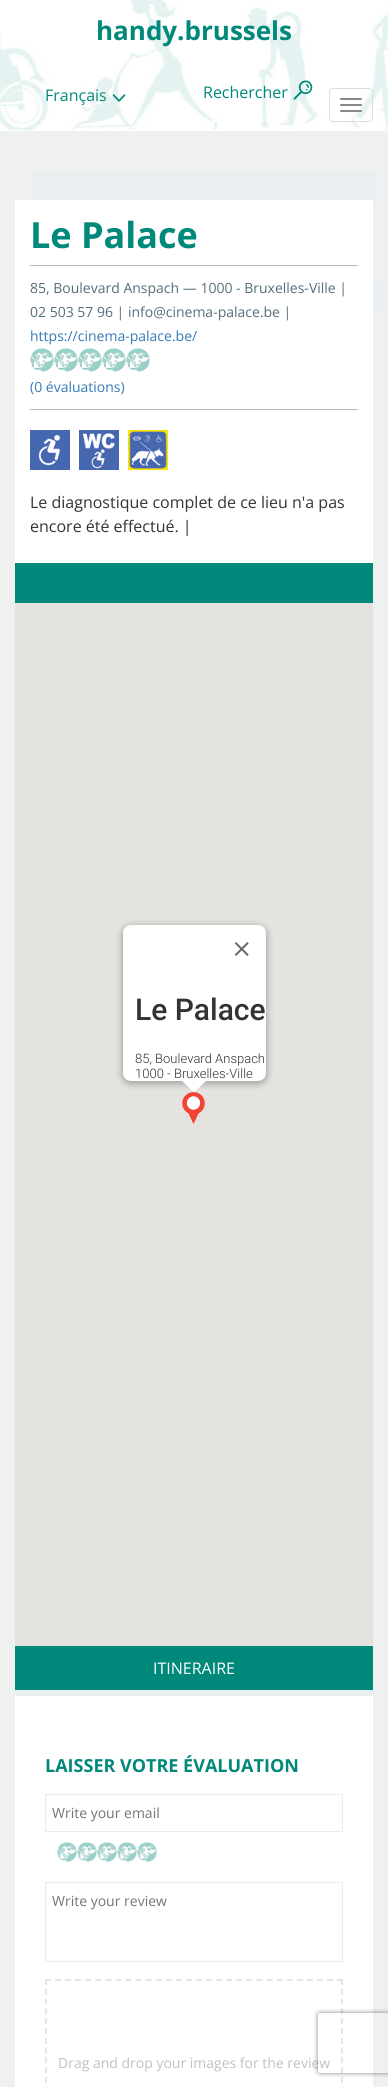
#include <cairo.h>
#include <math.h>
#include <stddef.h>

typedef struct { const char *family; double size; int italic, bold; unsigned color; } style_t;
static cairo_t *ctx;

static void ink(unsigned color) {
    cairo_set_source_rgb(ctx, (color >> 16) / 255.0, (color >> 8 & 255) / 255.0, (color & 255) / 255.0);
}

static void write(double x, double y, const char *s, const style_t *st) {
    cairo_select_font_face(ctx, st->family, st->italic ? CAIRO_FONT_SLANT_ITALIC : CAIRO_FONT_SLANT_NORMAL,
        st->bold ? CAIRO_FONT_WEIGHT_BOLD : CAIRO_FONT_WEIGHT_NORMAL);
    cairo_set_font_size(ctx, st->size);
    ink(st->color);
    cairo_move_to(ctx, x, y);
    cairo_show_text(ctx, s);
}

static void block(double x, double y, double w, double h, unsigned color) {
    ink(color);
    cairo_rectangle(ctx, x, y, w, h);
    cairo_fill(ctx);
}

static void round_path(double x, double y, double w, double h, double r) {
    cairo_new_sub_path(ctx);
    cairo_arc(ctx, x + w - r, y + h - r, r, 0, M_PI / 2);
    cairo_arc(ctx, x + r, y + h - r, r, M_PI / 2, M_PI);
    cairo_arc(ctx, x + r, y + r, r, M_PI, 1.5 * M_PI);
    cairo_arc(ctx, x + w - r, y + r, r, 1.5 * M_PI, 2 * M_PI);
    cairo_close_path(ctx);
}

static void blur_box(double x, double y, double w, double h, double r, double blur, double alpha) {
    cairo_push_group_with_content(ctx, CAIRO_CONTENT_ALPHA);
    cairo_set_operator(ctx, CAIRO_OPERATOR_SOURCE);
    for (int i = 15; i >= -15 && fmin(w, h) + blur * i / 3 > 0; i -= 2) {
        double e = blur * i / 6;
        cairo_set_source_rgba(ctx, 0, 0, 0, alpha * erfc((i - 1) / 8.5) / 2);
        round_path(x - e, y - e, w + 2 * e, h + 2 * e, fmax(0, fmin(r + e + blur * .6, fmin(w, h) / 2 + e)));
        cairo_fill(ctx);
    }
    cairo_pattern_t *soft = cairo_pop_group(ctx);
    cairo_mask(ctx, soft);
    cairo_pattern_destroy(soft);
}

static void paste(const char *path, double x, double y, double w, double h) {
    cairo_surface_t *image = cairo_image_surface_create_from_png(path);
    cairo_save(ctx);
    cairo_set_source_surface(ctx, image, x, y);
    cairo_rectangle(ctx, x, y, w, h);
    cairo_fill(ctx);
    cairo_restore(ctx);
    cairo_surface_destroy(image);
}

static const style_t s1 = {"Open Sans", 26, 0, 1, 0x00897b};
static const style_t s2 = {"Open Sans", 16, 0, 0, 0x00897b};
static const style_t s3 = {"Open Sans", 36, 0, 1, 0x00897b};
static const style_t s4 = {"Open Sans", 14, 0, 0, 0x546e7a};
static const style_t s5 = {"Open Sans", 14, 0, 0, 0x337ab7};
static const style_t s6 = {"Open Sans", 16, 0, 0, 0x333333};
static const style_t s7 = {"Roboto Medium", 30, 0, 0, 0x333333};
static const style_t s8 = {"Roboto Light", 13, 0, 0, 0x333333};
static const style_t s9 = {"Open Sans", 16, 0, 0, 0xffffff};
static const style_t s10 = {"Open Sans", 18, 0, 1, 0x00897b};
static const style_t s11 = {"Open Sans", 14, 0, 0, 0x757575};
static const style_t s12 = {"Open Sans", 14, 0, 0, 0xc0c0c0};

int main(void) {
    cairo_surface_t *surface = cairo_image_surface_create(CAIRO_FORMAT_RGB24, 388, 2087);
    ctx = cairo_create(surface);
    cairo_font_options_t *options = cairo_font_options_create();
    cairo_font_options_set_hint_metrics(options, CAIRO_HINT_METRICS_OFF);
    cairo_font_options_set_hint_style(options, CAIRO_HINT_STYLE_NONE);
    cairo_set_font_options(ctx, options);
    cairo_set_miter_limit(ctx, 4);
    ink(0xeff0f0);
    cairo_paint(ctx);
    paste("pic1.png", 0, 0, 388, 130);
    block(0, 130, 388, 1, 0xffffff);
    write(96, 40, "handy.brussels", &s1);
    write(45, 101, "Français", &s2);
    paste("pic2.png", 112, 94, 14, 8);
    write(203, 98, "Rechercher", &s2);
    paste("pic3.png", 293, 80, 20, 20);
    round_path(329.5, 88.5, 43, 33, 3.5);
    ink(0xdddddd);
    cairo_set_line_width(ctx, 1);
    cairo_stroke(ctx);
    ink(0x888888);
    round_path(340, 98, 22, 2, 1);
    cairo_fill(ctx);
    round_path(340, 104, 22, 2, 1);
    cairo_fill(ctx);
    round_path(340, 110, 22, 2, 1);
    cairo_fill(ctx);
    block(31, 172, 347, 34, 0xeceff1);
    block(373, 280, 10, 34, 0xeceff1);
    block(15, 200, 358, 363, 0xffffff);
    write(30, 248, "Le Palace", &s3);
    block(30, 265, 328, 1, 0xb0bec5);
    block(30, 409, 328, 1, 0xb0bec5);
    write(30, 293, "85, Boulevard Anspach — 1000 - Bruxelles-Ville |", &s4);
    write(30, 317, "02 503 57 96 | info@cinema-palace.be |", &s4);
    write(30, 341, "https://cinema-palace.be/", &s5);
    paste("pic4.png", 30, 348, 120, 24);
    write(30, 392, "(0 évaluations)", &s5);
    paste("pic5.png", 30, 430, 40, 40);
    paste("pic6.png", 79, 430, 40, 40);
    paste("pic7.png", 128, 430, 40, 40);
    write(30, 508, "Le diagnostique complet de ce lieu n'a pas", &s6);
    write(30, 532, "encore été effectué. |", &s6);
    block(15, 563, 358, 40, 0x00897b);
    block(15, 603, 358, 1043, 0xe5e3df);
    paste("pic9.png", 182, 1092, 23, 32);
    ink(0x000000);
    blur_box(122, 926, 145, 158, 9, 3.5, 0.3);
    ink(0xffffff);
    round_path(123, 925, 143, 156, 8);
    cairo_fill(ctx);
    paste("pic8.png", 234, 942, 15, 14);
    write(135, 1020, "Le Palace", &s7);
    write(135, 1063, "85, Boulevard Anspach", &s8);
    write(135, 1078, "1000 - Bruxelles-Ville", &s8);
    ink(0xffffff);
    cairo_new_path(ctx);
    cairo_move_to(ctx, 182, 1081);
    cairo_line_to(ctx, 182, 1080.5);
    cairo_line_to(ctx, 206.5, 1080.5);
    cairo_line_to(ctx, 194.5, 1092);
    cairo_line_to(ctx, 193.5, 1092);
    cairo_close_path(ctx);
    cairo_fill(ctx);
    block(15, 1646, 358, 44, 0x00897b);
    write(153, 1674, "ITINERAIRE", &s9);
    block(15, 1696, 358, 391, 0xffffff);
    block(15, 1690, 358, 6, 0xeceff1);
    write(45, 1772, "LAISSER VOTRE ÉVALUATION", &s10);
    cairo_rectangle(ctx, 45.5, 1794.5, 297, 37);
    ink(0xebebeb);
    cairo_stroke(ctx);
    write(52, 1818, "Write your email", &s11);
    paste("pic10.png", 57, 1842, 10, 20);
    paste("pic11.png", 67, 1842, 10, 20);
    paste("pic10.png", 77, 1842, 10, 20);
    paste("pic12.png", 87, 1842, 10, 20);
    paste("pic13.png", 97, 1842, 10, 20);
    paste("pic11.png", 107, 1842, 10, 20);
    paste("pic10.png", 117, 1842, 10, 20);
    paste("pic11.png", 127, 1842, 10, 20);
    paste("pic10.png", 137, 1842, 10, 20);
    paste("pic11.png", 147, 1842, 10, 20);
    cairo_rectangle(ctx, 45.5, 1882.5, 297, 79);
    ink(0xebebeb);
    cairo_stroke(ctx);
    write(52, 1906, "Write your review", &s11);
    cairo_new_path(ctx);
    cairo_move_to(ctx, 45, 1980);
    cairo_line_to(ctx, 343, 1980);
    ink(0xe5e5e5);
    cairo_set_line_width(ctx, 2);
    cairo_set_dash(ctx, (double[]){6, 4.07}, 2, 0);
    cairo_stroke(ctx);
    cairo_new_path(ctx);
    cairo_move_to(ctx, 342, 1979);
    cairo_line_to(ctx, 342, 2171);
    cairo_set_dash(ctx, (double[]){6, 3.79}, 2, 0);
    cairo_stroke(ctx);
    cairo_new_path(ctx);
    cairo_move_to(ctx, 46, 1979);
    cairo_line_to(ctx, 46, 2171);
    cairo_stroke(ctx);
    write(58, 2068, "Drag and drop your images for the review", &s12);
    cairo_save(ctx);
    cairo_set_fill_rule(ctx, CAIRO_FILL_RULE_EVEN_ODD);
    cairo_new_path(ctx);
    cairo_move_to(ctx, 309, 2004);
    cairo_line_to(ctx, 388, 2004);
    cairo_line_to(ctx, 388, 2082);
    cairo_line_to(ctx, 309, 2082);
    cairo_close_path(ctx);
    cairo_move_to(ctx, 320, 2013);
    cairo_line_to(ctx, 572, 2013);
    cairo_curve_to(ctx, 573, 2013, 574, 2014, 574, 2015);
    cairo_line_to(ctx, 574, 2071);
    cairo_curve_to(ctx, 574, 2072, 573, 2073, 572, 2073);
    cairo_line_to(ctx, 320, 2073);
    cairo_curve_to(ctx, 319, 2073, 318, 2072, 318, 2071);
    cairo_line_to(ctx, 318, 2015);
    cairo_curve_to(ctx, 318, 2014, 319, 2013, 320, 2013);
    cairo_close_path(ctx);
    cairo_clip(ctx);
    ink(0x808080);
    blur_box(318, 2013, 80, 60, 2, 2.5, 1);
    cairo_restore(ctx);
    cairo_surface_write_to_png(surface, "screenshot.png");
    cairo_font_options_destroy(options);
    cairo_destroy(ctx);
    cairo_surface_destroy(surface);
    return 0;
}
